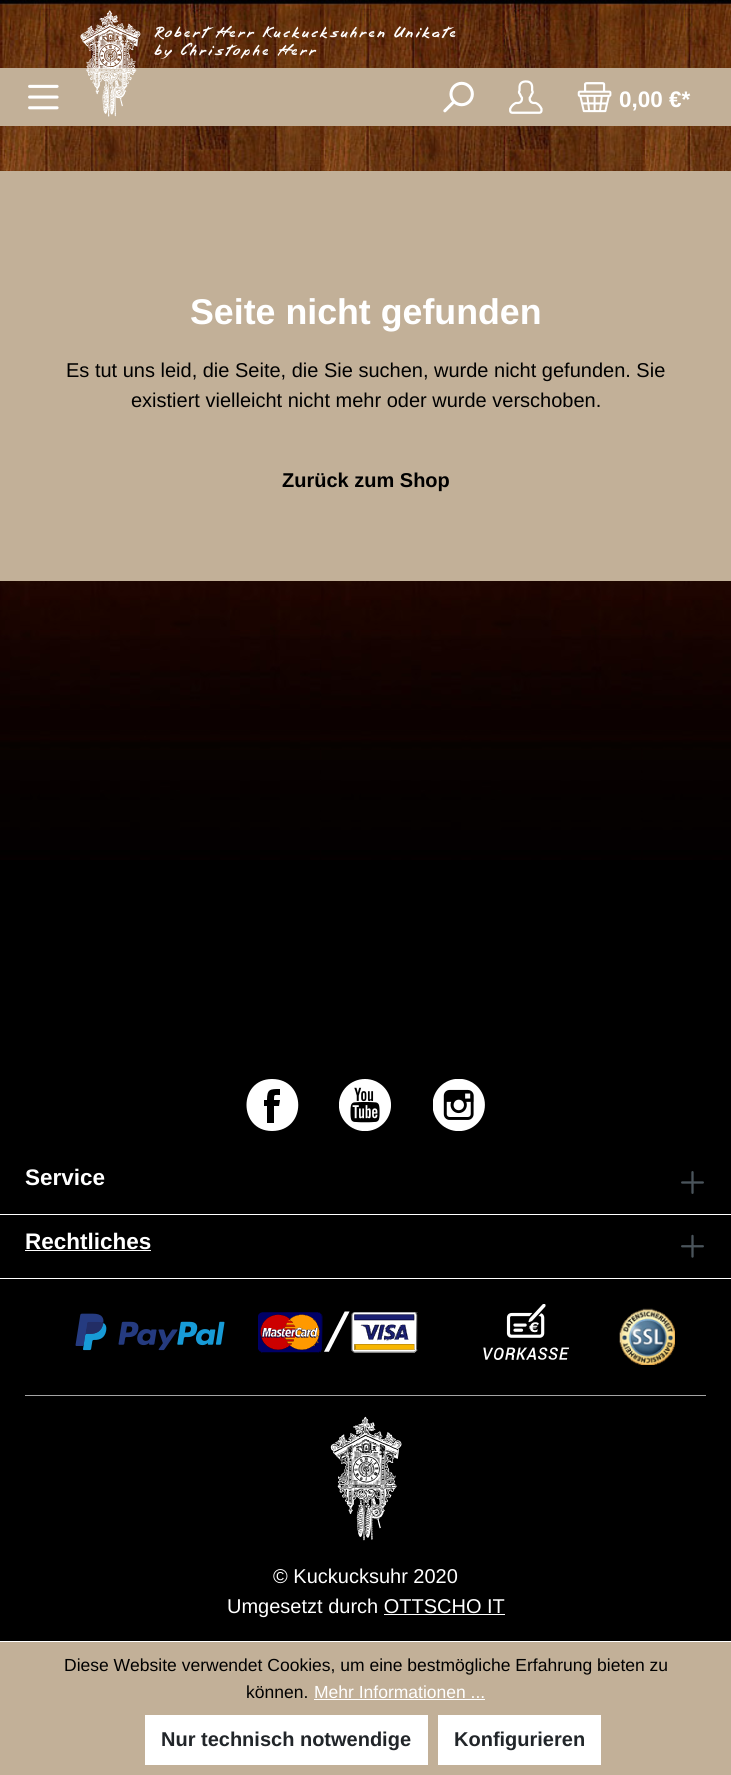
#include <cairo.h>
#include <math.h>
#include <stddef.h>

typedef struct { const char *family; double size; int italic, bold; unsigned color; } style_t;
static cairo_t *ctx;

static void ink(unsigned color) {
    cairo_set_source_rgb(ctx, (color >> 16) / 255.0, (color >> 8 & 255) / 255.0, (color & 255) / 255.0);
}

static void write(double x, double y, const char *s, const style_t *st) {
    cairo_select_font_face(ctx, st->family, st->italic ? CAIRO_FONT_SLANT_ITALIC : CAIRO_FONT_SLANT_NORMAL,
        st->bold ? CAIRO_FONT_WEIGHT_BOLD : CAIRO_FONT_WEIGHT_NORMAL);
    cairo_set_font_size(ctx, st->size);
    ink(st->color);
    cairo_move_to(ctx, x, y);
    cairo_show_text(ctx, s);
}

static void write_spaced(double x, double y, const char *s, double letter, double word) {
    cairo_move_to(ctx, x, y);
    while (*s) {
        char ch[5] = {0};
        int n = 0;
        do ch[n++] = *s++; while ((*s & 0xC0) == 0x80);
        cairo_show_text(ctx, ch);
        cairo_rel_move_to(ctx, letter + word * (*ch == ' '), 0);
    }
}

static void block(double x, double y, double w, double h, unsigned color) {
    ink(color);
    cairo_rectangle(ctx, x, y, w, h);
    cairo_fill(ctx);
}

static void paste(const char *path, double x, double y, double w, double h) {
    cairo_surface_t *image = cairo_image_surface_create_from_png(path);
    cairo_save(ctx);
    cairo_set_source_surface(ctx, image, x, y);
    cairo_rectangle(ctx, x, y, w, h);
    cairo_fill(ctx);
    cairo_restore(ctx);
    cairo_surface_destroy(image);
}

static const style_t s1 = {"Liberation Sans", 22.5, 0, 1, 0xffffff};
static const style_t s2 = {"Liberation Sans", 35.75, 0, 1, 0xffffff};
static const style_t s3 = {"Liberation Sans", 20, 0, 0, 0x000000};
static const style_t s4 = {"Liberation Sans", 20, 0, 1, 0x000000};
static const style_t s5 = {"Liberation Sans", 20, 0, 0, 0xffffff};
static const style_t s6 = {"Liberation Sans", 17.5, 0, 0, 0x000000};
static const style_t s7 = {"Liberation Sans", 17.5, 0, 0, 0xffffff};
static const style_t s8 = {"Liberation Sans", 20, 0, 1, 0x212529};

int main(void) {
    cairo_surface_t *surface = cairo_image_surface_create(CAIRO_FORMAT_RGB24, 731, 1775);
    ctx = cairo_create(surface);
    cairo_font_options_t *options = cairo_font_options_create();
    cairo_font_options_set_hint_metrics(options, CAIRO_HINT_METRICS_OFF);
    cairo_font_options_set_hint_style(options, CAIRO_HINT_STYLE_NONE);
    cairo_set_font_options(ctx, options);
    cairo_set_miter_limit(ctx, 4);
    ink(0x000000);
    cairo_paint(ctx);
    paste("pic1.png", 0, 0, 731, 860);
    block(0, 68, 731, 58, 0xc2b098);
    paste("pic2.png", 80, 10, 61, 107);
    cairo_select_font_face(ctx, "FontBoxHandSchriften", CAIRO_FONT_SLANT_NORMAL, CAIRO_FONT_WEIGHT_NORMAL);
    cairo_set_font_size(ctx, 15);
    ink(0xffffff);
    write_spaced(154, 37, "Robert Herr Kuckucksuhren Unikate", 2.5, 0);
    write_spaced(154, 55, "by Christophe Herr", 2.5, 0);
    paste("pic3.png", 28, 84, 31, 26);
    paste("pic4.png", 443, 81, 31, 32);
    paste("pic5.png", 509, 80, 34, 34);
    paste("pic6.png", 577, 82, 35, 31);
    write(619, 107, "0,00 €*", &s1);
    block(0, 171, 731, 410, 0xc2b098);
    write(190, 324, "Seite nicht gefunden", &s2);
    write(66, 377, "Es tut uns leid, die Seite, die Sie suchen, wurde nicht gefunden. Sie", &s3);
    write(131, 407, "existiert vielleicht nicht mehr oder wurde verschoben.", &s3);
    write(282, 487, "Zurück zum Shop", &s4);
    ink(0xffffff);
    cairo_new_path(ctx);
    cairo_move_to(ctx, 272, 1079);
    cairo_curve_to(ctx, 238, 1079, 238, 1131, 272, 1131);
    cairo_curve_to(ctx, 307, 1131, 307, 1079, 272, 1079);
    cairo_close_path(ctx);
    cairo_move_to(ctx, 280, 1095);
    cairo_curve_to(ctx, 274, 1095, 274, 1094, 274, 1100);
    cairo_line_to(ctx, 280, 1100);
    cairo_line_to(ctx, 279, 1106);
    cairo_line_to(ctx, 274, 1106);
    cairo_line_to(ctx, 274, 1123);
    cairo_line_to(ctx, 267, 1123);
    cairo_line_to(ctx, 267, 1106);
    cairo_line_to(ctx, 264, 1106);
    cairo_line_to(ctx, 264, 1100);
    cairo_line_to(ctx, 267, 1100);
    cairo_curve_to(ctx, 267, 1089, 270, 1089, 280, 1089);
    cairo_close_path(ctx);
    cairo_fill(ctx);
    paste("pic7.png", 339, 1079, 52, 52);
    paste("pic8.png", 433, 1079, 52, 52);
    block(0, 1214, 731, 1, 0xffffff);
    write(25, 1185, "Service", &s1);
    paste("pic9.png", 681, 1171, 23, 23);
    block(0, 1278, 731, 1, 0xffffff);
    write(25, 1249, "Rechtliches", &s1);
    block(25, 1250, 126, 1, 0xffffff);
    paste("pic10.png", 681, 1234, 23, 24);
    block(25, 1395, 681, 1, 0xa4a4a4);
    paste("pic11.png", 75, 1313, 150, 38);
    paste("pic12.png", 258, 1311, 160, 42);
    paste("pic13.png", 483, 1304, 87, 56);
    paste("pic14.png", 619, 1308, 56, 57);
    paste("pic15.png", 330, 1416, 72, 125);
    write(273, 1583, "© Kuckucksuhr 2020", &s5);
    write(227, 1613, "Umgesetzt durch OTTSCHO IT", &s5);
    block(384, 1614, 121, 1, 0xffffff);
    block(0, 1642, 731, 133, 0xc2b098);
    block(0, 1641, 731, 1, 0xffffff);
    write(64, 1671, "Diese Website verwendet Cookies, um eine bestmögliche Erfahrung bieten zu", &s6);
    write(246, 1698, "können.", &s6);
    write(314, 1698, "Mehr Informationen ...", &s7);
    block(314, 1699, 171, 1, 0xffffff);
    block(145, 1715, 283, 50, 0xffffff);
    write(161, 1746, "Nur technisch notwendige", &s8);
    block(438, 1715, 163, 50, 0xffffff);
    write(454, 1746, "Konfigurieren", &s8);
    cairo_surface_write_to_png(surface, "screenshot.png");
    cairo_font_options_destroy(options);
    cairo_destroy(ctx);
    cairo_surface_destroy(surface);
    return 0;
}
